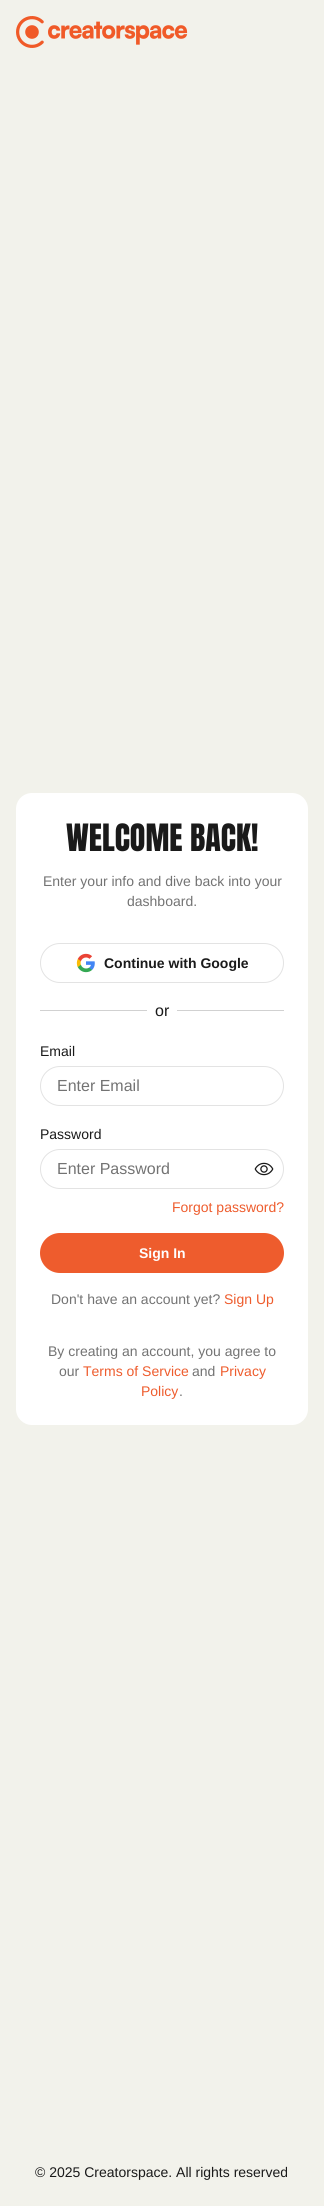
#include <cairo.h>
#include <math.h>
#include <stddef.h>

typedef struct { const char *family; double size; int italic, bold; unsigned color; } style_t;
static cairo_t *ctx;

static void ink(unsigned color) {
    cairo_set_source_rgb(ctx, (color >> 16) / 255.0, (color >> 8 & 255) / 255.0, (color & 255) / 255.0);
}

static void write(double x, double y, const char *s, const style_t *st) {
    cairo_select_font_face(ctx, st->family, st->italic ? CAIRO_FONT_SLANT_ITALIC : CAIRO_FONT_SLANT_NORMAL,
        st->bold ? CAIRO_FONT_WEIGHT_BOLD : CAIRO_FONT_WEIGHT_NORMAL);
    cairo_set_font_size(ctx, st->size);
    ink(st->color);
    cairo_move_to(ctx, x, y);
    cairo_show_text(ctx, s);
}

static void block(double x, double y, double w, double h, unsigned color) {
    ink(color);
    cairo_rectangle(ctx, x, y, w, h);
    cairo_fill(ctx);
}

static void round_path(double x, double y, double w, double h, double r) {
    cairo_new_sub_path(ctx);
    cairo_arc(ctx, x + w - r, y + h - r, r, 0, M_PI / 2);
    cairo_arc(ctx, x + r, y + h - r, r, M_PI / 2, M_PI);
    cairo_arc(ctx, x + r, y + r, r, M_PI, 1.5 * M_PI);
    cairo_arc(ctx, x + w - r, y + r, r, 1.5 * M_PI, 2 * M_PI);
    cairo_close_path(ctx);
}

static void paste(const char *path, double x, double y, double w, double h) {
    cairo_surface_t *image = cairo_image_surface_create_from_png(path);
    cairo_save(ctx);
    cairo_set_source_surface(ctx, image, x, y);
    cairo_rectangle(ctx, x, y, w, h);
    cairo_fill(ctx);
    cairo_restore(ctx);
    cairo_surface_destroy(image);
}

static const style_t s1 = {"Anton", 32, 0, 0, 0x1a1a1a};
static const style_t s2 = {"Liberation Sans", 14, 0, 0, 0x737373};
static const style_t s3 = {"Liberation Sans", 14, 0, 1, 0x1a1a1a};
static const style_t s4 = {"Liberation Sans", 16, 0, 0, 0x1a1a1a};
static const style_t s5 = {"Liberation Sans", 14, 0, 0, 0x1a1a1a};
static const style_t s6 = {"Liberation Sans", 16, 0, 0, 0x737373};
static const style_t s7 = {"Liberation Sans", 14, 0, 0, 0xee5c2d};
static const style_t s8 = {"Liberation Sans", 14, 0, 1, 0xffffff};

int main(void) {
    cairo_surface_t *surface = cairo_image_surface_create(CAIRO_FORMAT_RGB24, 324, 2206);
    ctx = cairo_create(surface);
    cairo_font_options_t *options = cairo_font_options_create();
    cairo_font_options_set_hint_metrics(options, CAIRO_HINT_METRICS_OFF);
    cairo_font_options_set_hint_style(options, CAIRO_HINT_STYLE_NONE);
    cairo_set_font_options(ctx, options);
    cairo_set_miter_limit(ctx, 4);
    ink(0xf2f2eb);
    cairo_paint(ctx);
    paste("pic1.png", 16, 16, 172, 32);
    ink(0xffffff);
    round_path(16, 793, 292, 632, 16);
    cairo_fill(ctx);
    write(66, 851, "WELCOME BACK!", &s1);
    write(43, 886, "Enter your info and dive back into your", &s2);
    write(127, 906, "dashboard.", &s2);
    round_path(40.5, 943.5, 243, 39, 19.5);
    ink(0xe3e3e3);
    cairo_set_line_width(ctx, 1);
    cairo_stroke(ctx);
    paste("pic2.png", 76, 953, 19, 20);
    write(104, 968, "Continue with Google", &s3);
    block(40, 1010, 107, 1, 0xd1d1d1);
    write(155, 1016, "or", &s4);
    block(177, 1010, 107, 1, 0xd1d1d1);
    write(40, 1056, "Email", &s5);
    round_path(40.5, 1066.5, 243, 39, 19.5);
    ink(0xe3e3e3);
    cairo_stroke(ctx);
    write(57, 1091, "Enter Email", &s6);
    write(40, 1139, "Password", &s5);
    round_path(40.5, 1149.5, 243, 39, 19.5);
    ink(0xe3e3e3);
    cairo_stroke(ctx);
    write(57, 1174, "Enter Password", &s6);
    paste("pic3.png", 254, 1162, 20, 14);
    write(172, 1212, "Forgot password?", &s7);
    round_path(40, 1233, 244, 40, 20);
    cairo_fill(ctx);
    write(139, 1258, "Sign In", &s8);
    write(51, 1304, "Don't have an account yet?", &s2);
    write(224, 1304, "Sign Up", &s7);
    write(48, 1356, "By creating an account, you agree to", &s2);
    write(59, 1376, "our", &s2);
    write(83, 1376, "Terms of Service", &s7);
    write(192, 1376, "and", &s2);
    write(220, 1376, "Privacy", &s7);
    write(141, 1396, "Policy", &s7);
    write(179, 1396, ".", &s2);
    write(35, 2177, "© 2025 Creatorspace. All rights reserved", &s5);
    cairo_surface_write_to_png(surface, "screenshot.png");
    cairo_font_options_destroy(options);
    cairo_destroy(ctx);
    cairo_surface_destroy(surface);
    return 0;
}
